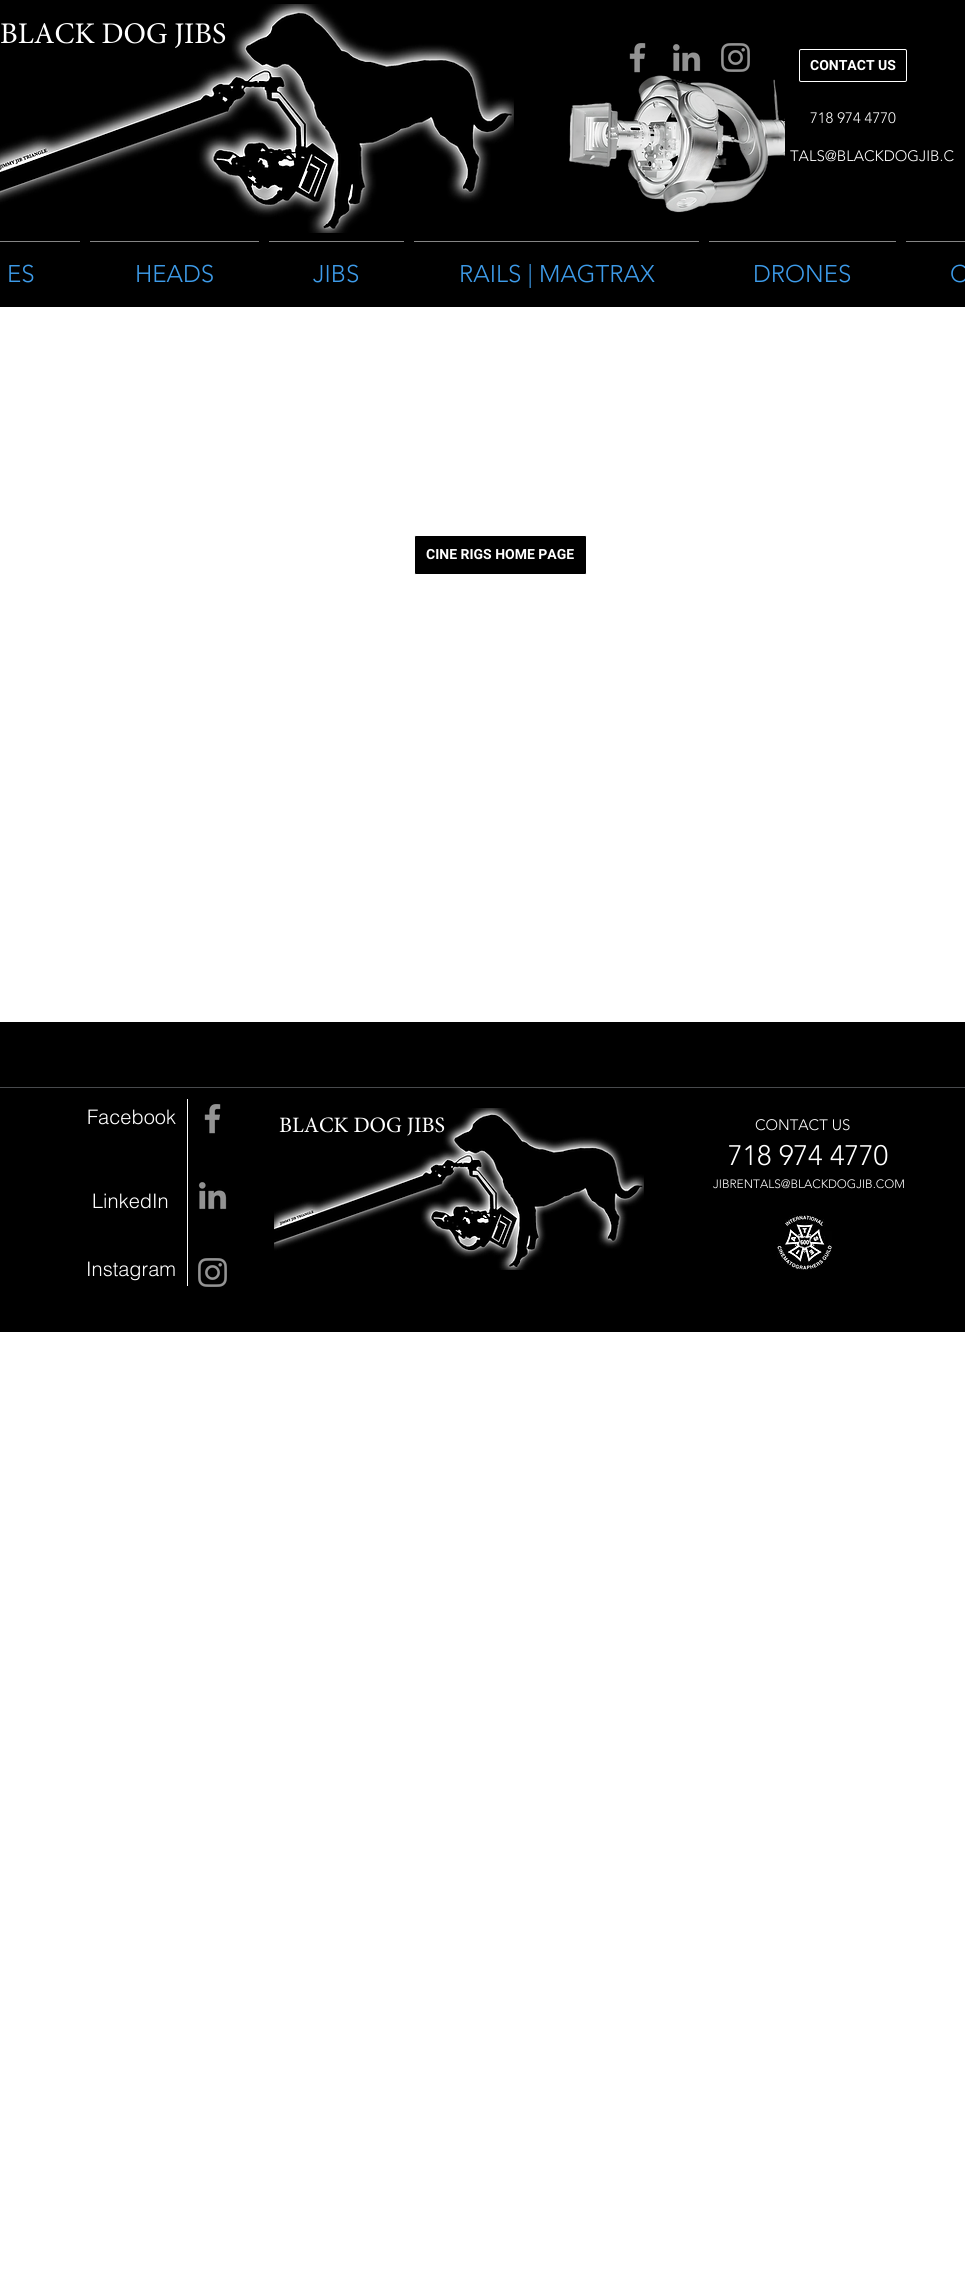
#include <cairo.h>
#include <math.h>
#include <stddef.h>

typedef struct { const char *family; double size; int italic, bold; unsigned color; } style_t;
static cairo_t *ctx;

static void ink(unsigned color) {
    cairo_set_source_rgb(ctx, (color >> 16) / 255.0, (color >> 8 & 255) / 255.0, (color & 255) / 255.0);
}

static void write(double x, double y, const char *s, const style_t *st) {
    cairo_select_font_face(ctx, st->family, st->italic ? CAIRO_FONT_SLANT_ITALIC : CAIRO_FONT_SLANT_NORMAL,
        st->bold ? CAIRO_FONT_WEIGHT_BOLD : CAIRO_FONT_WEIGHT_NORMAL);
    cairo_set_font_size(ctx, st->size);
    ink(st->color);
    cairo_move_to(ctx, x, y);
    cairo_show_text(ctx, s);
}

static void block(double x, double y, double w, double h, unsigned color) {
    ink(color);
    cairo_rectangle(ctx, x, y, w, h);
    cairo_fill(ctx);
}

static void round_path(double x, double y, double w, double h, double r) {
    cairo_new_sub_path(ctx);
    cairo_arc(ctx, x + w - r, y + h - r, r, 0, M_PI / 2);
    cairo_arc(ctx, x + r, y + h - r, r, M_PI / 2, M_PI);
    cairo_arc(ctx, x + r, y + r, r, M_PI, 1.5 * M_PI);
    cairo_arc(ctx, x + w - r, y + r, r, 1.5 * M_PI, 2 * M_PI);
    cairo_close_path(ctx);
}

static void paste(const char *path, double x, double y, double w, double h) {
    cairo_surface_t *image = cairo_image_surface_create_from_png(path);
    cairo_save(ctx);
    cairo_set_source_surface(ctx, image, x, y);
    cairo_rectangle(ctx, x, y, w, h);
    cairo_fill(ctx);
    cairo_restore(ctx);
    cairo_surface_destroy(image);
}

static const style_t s1 = {"Minion", 30, 0, 0, 0xffffff};
static const style_t s2 = {"Roboto", 14, 0, 1, 0xffffff};
static const style_t s3 = {"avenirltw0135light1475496 Light", 15, 0, 0, 0xffffff};
static const style_t s4 = {"avenirltw0135light1475496 Light", 24, 0, 0, 0x3d9be9};
static const style_t s5 = {"helvetica Light", 20, 0, 0, 0xffffff};
static const style_t s6 = {"Minion", 22, 0, 0, 0xffffff};
static const style_t s7 = {"avenirltw0135light1475496 Light", 28, 0, 0, 0xffffff};
static const style_t s8 = {"avenirltw0135light1475496 Light", 12, 0, 0, 0xffffff};

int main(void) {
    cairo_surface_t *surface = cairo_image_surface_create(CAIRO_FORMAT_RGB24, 965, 2287);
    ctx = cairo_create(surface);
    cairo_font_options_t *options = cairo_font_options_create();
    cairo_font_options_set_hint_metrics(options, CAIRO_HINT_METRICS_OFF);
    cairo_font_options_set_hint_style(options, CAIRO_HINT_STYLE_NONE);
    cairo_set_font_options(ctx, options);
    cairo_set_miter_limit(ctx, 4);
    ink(0xffffff);
    cairo_paint(ctx);
    block(0, 0, 965, 4, 0x000000);
    block(0, 4, 965, 303, 0x000000);
    paste("pic1.png", 0, 4, 514, 229);
    write(0, 43, "BLACK DOG JIBS", &s1);
    round_path(799.5, 49.5, 107, 32, 1.5);
    cairo_set_line_width(ctx, 1);
    cairo_stroke(ctx);
    write(810, 70, "CONTACT US", &s2);
    write(810, 123, "718 974 4770", &s3);
    write(790, 161, "TALS@BLACKDOGJIB.C", &s3);
    paste("pic2.png", 629, 43, 17, 30);
    paste("pic3.png", 672, 44, 29, 28);
    paste("pic4.png", 721, 43, 29, 29);
    paste("pic5.png", 569, 75, 216, 138);
    block(0, 241, 80, 1, 0x858585);
    write(7, 282, "ES", &s4);
    block(90, 241, 169, 1, 0x858585);
    write(135, 282, "HEADS", &s4);
    block(269, 241, 135, 1, 0x858585);
    write(313, 282, "JIBS", &s4);
    block(414, 241, 285, 1, 0x858585);
    write(459, 282, "RAILS | MAGTRAX", &s4);
    block(709, 241, 187, 1, 0x858585);
    write(753, 282, "DRONES", &s4);
    block(906, 241, 59, 1, 0x858585);
    write(950, 282, "C", &s4);
    ink(0x000000);
    round_path(414.5, 535.5, 172, 39, 1.5);
    cairo_fill_preserve(ctx);
    ink(0xffffff);
    cairo_stroke(ctx);
    write(426, 559, "CINE RIGS HOME PAGE", &s2);
    block(0, 1022, 965, 310, 0x000000);
    block(0, 1087, 965, 1, 0x484a4d);
    write(87, 1124, "Facebook", &s5);
    block(187, 1099, 1, 187, 0xffffff);
    paste("pic2.png", 204, 1104, 17, 30);
    paste("pic3.png", 198, 1182, 29, 28);
    paste("pic4.png", 198, 1258, 29, 29);
    write(92, 1208, "LinkedIn", &s5);
    write(86, 1276, "Instagram", &s5);
    paste("pic6.png", 274, 1108, 370, 162);
    write(279, 1132, "BLACK DOG JIBS", &s6);
    write(755, 1130, "CONTACT US", &s3);
    write(728, 1165, "718 974 4770", &s7);
    write(713, 1188, "JIBRENTALS@BLACKDOGJIB.COM", &s8);
    paste("pic7.png", 777, 1215, 55, 55);
    cairo_surface_write_to_png(surface, "screenshot.png");
    cairo_font_options_destroy(options);
    cairo_destroy(ctx);
    cairo_surface_destroy(surface);
    return 0;
}
